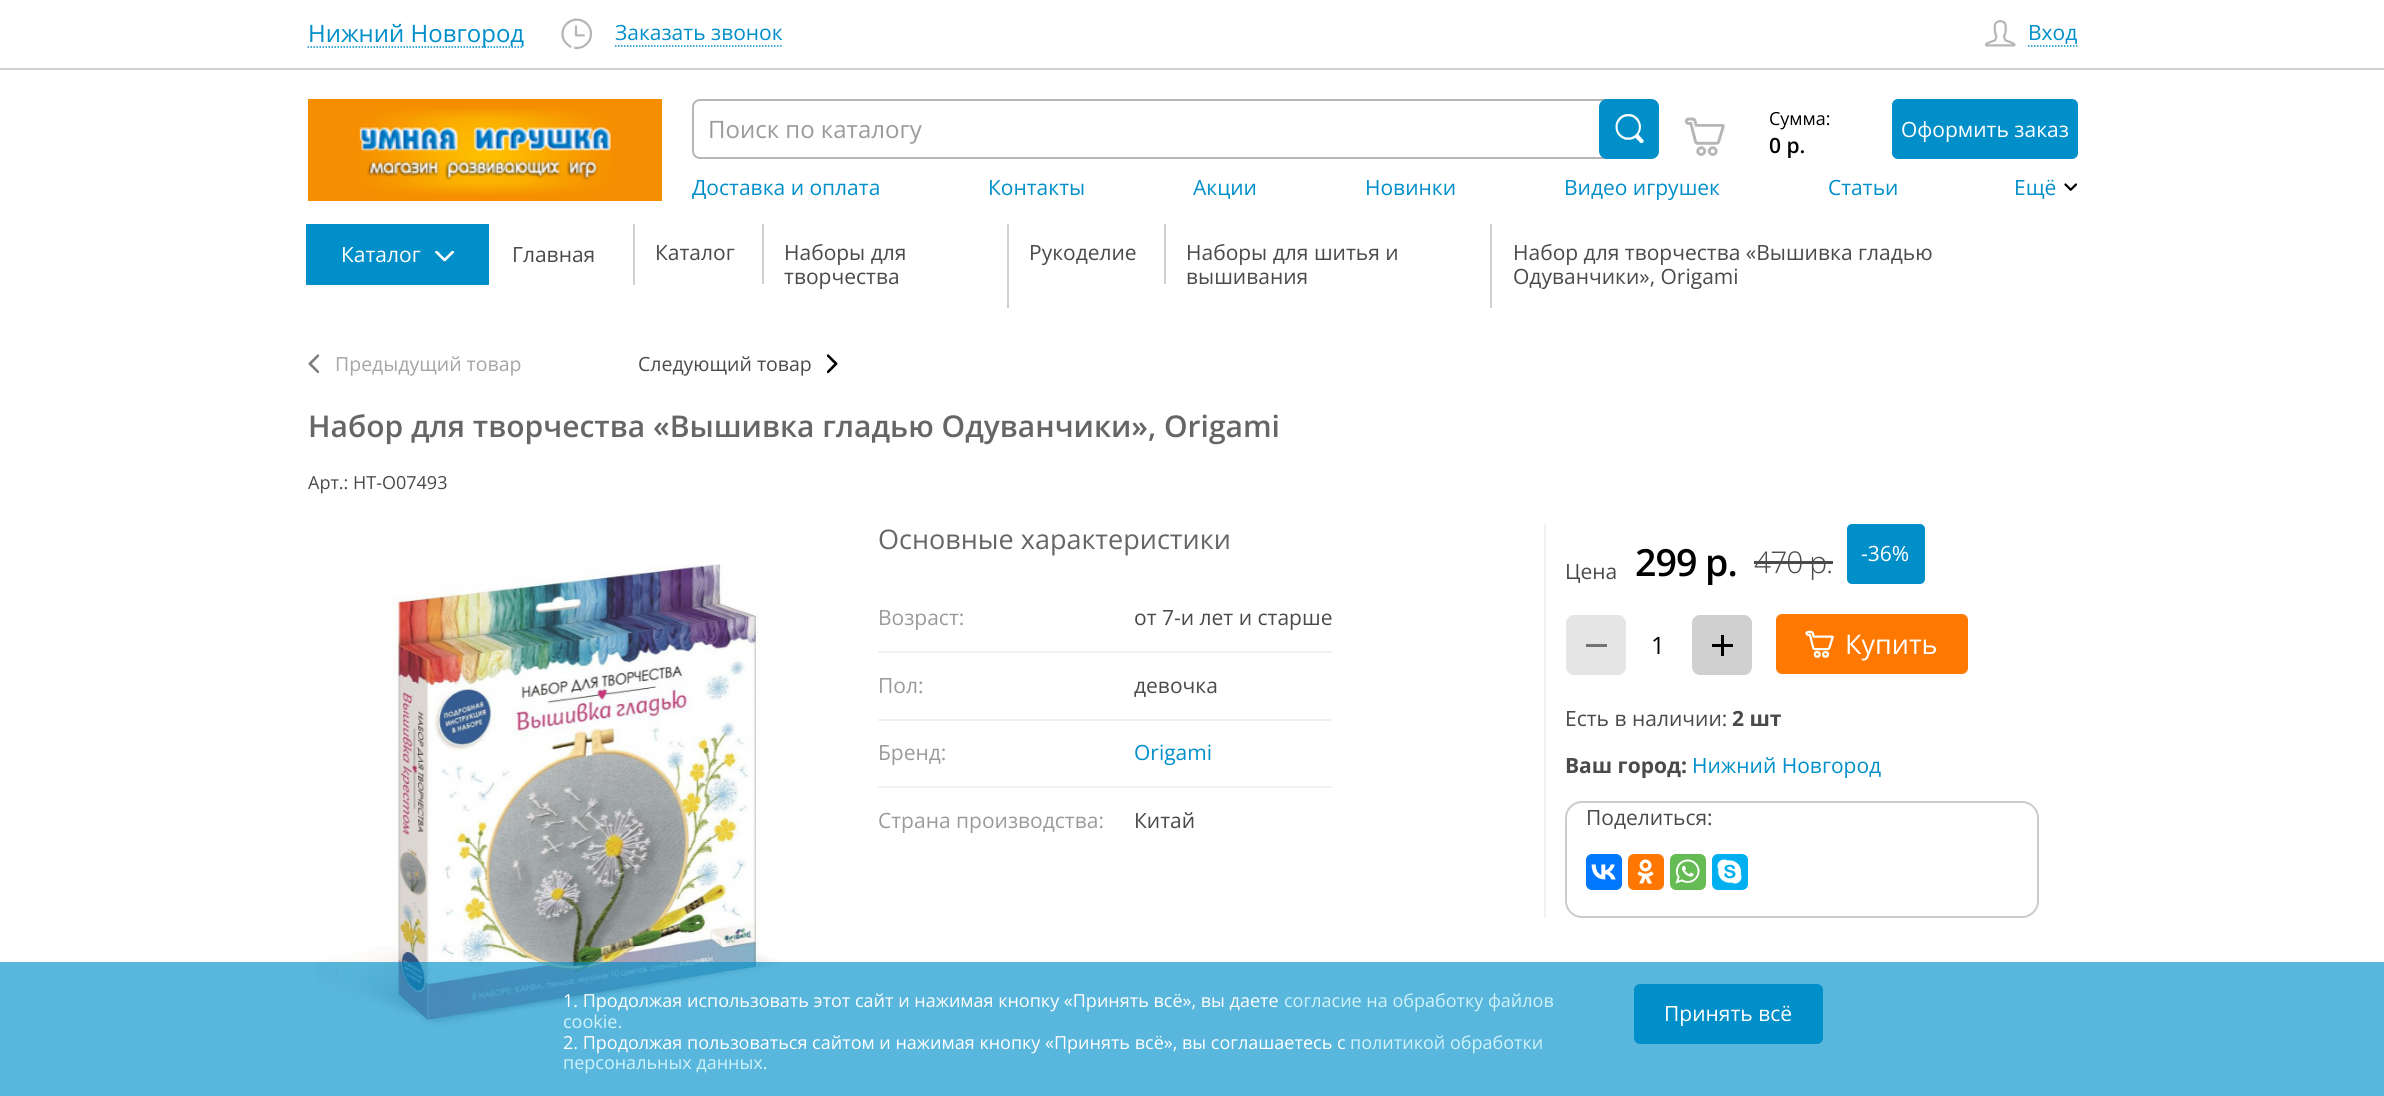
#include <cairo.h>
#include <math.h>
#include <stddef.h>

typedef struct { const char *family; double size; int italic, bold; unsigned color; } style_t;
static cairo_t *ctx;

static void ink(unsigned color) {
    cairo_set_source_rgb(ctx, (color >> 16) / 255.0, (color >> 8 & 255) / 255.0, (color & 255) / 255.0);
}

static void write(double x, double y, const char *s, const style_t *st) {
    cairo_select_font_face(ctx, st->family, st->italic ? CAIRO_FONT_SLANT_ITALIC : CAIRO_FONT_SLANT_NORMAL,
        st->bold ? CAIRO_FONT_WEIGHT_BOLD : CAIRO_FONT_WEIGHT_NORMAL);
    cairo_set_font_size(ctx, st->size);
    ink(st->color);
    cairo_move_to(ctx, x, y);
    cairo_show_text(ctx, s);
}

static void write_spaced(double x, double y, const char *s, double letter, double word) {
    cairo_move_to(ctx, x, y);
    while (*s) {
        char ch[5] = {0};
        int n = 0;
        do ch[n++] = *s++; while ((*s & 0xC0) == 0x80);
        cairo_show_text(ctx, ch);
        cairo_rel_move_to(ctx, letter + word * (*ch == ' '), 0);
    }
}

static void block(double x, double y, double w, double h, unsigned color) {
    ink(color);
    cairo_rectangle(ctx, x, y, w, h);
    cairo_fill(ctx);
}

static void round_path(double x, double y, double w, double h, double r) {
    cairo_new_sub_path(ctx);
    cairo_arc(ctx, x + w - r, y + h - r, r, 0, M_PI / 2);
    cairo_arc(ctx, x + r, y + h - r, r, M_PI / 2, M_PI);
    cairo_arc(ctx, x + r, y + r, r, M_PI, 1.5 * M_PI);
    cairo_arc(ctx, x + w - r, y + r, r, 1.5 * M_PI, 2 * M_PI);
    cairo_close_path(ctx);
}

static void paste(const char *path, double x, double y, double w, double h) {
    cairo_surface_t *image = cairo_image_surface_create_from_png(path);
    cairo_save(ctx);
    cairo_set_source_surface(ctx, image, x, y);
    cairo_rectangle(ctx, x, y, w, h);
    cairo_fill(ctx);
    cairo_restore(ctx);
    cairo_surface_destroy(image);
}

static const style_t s1 = {"Open Sans", 24, 0, 0, 0x008fc9};
static const style_t s2 = {"Open Sans", 21, 0, 0, 0x008fc9};
static const style_t s3 = {"Open Sans", 24, 0, 0, 0x9b9b9b};
static const style_t s4 = {"Open Sans", 18, 0, 0, 0x000000};
static const style_t s5 = {"Open Sans SemiBold", 21, 0, 0, 0x000000};
static const style_t s6 = {"Open Sans", 21, 0, 0, 0xffffff};
static const style_t s7 = {"Open Sans", 21, 0, 0, 0x4a4a4a};
static const style_t s8 = {"Open Sans", 19.5, 0, 0, 0xa5a5a5};
static const style_t s9 = {"Open Sans", 19.5, 0, 0, 0x4a4a4a};
static const style_t s10 = {"Open Sans SemiBold", 30, 0, 0, 0x666666};
static const style_t s11 = {"Open Sans", 18, 0, 0, 0x4a4a4a};
static const style_t s12 = {"Open Sans", 27, 0, 0, 0x666666};
static const style_t s13 = {"Open Sans", 21, 0, 0, 0x9b9b9b};
static const style_t s14 = {"Open Sans", 24, 0, 0, 0x000000};
static const style_t s15 = {"Open Sans", 27, 0, 0, 0xffffff};
static const style_t s16 = {"Open Sans", 21, 0, 1, 0x4a4a4a};
static const style_t s17 = {"Open Sans", 18, 0, 0, 0xffffff};
static const style_t s18 = {"Open Sans", 18, 0, 0, 0xcef3fa};

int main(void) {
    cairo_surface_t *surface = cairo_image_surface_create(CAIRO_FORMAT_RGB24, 2384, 1096);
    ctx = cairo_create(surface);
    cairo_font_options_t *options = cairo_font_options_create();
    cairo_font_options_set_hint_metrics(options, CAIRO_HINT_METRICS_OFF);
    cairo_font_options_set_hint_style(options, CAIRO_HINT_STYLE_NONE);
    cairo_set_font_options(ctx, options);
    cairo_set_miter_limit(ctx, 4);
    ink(0xffffff);
    cairo_paint(ctx);
    block(0, 68, 2384, 2, 0xd0d0d0);
    cairo_new_path(ctx);
    cairo_move_to(ctx, 307.5, 47);
    cairo_line_to(ctx, 523.5, 47);
    ink(0x008fc9);
    cairo_set_line_width(ctx, 1.5);
    cairo_set_dash(ctx, (double[]){1.5, 1.5}, 2, 0);
    cairo_stroke(ctx);
    write(308, 42, "Нижний Новгород", &s1);
    paste("pic1.png", 561, 18, 32, 32);
    cairo_new_path(ctx);
    cairo_move_to(ctx, 615, 46);
    cairo_line_to(ctx, 783, 46);
    cairo_stroke(ctx);
    write(615, 40, "Заказать звонок", &s2);
    paste("pic2.png", 1985, 20, 31, 27);
    cairo_new_path(ctx);
    cairo_move_to(ctx, 2028, 46);
    cairo_line_to(ctx, 2077.5, 46);
    cairo_stroke(ctx);
    write(2028, 40, "Вход", &s2);
    block(308, 99, 354, 102, 0xf58e00);
    paste("pic3.png", 359, 108, 252, 87);
    round_path(693, 100, 965, 58, 7);
    ink(0xb6b6b6);
    cairo_set_line_width(ctx, 2);
    cairo_set_dash(ctx, NULL, 0, 0);
    cairo_stroke(ctx);
    write(708, 138, "Поиск по каталогу", &s3);
    ink(0x008fc9);
    round_path(1599, 99, 60, 60, 8);
    cairo_fill(ctx);
    paste("pic4.png", 1615, 114, 29, 30);
    paste("pic5.png", 1684, 117, 41, 39);
    write(1769, 125, "Сумма:", &s4);
    write(1769, 153, "0 р.", &s5);
    ink(0x008fc9);
    round_path(1892, 99, 186, 60, 6);
    cairo_fill(ctx);
    write(1901, 137, "Оформить заказ", &s6);
    cairo_save(ctx);
    cairo_rectangle(ctx, 692, 174, 1386, 27);
    cairo_clip(ctx);
    write(692, 195, "Доставка и оплата", &s2);
    cairo_restore(ctx);
    write(988, 195, "Контакты", &s2);
    write(1193, 195, "Акции", &s2);
    write(1365, 195, "Новинки", &s2);
    write(1564, 195, "Видео игрушек", &s2);
    write(1828, 195, "Статьи", &s2);
    write(2014, 195, "Ещё", &s2);
    paste("pic6.png", 2064, 183, 14, 8);
    block(306, 224, 183, 61, 0x008fc9);
    write(341, 262, "Каталог", &s6);
    paste("pic7.png", 435, 251, 19, 12);
    block(633, 224, 2, 61, 0xd0d0d0);
    write(512, 262, "Главная", &s7);
    block(762, 224, 2, 60, 0xd0d0d0);
    write(655, 260, "Каталог", &s7);
    block(1007, 224, 2, 84, 0xd0d0d0);
    write(784, 260, "Наборы для", &s7);
    write(784, 284, "творчества", &s7);
    block(1164, 224, 2, 60, 0xd0d0d0);
    write(1029, 260, "Рукоделие", &s7);
    block(1490, 224, 2, 84, 0xd0d0d0);
    write(1186, 260, "Наборы для шитья и", &s7);
    write(1186, 284, "вышивания", &s7);
    write(1513, 260, "Набор для творчества «Вышивка гладью", &s7);
    write(1513, 284, "Одуванчики», Origami", &s7);
    paste("pic8.png", 308, 354, 12, 20);
    write(335, 371, "Предыдущий товар", &s8);
    write(638, 371, "Следующий товар", &s9);
    paste("pic9.png", 827, 354, 11, 20);
    write(308, 437, "Набор для творчества «Вышивка гладью Одуванчики», Origami", &s10);
    write(308, 489, "Арт.: НТ-О07493", &s11);
    paste("pic10.png", 315, 564, 468, 463);
    write(878, 549, "Основные характеристики", &s12);
    write(878, 625, "Возраст:", &s13);
    block(878, 651, 454, 2, 0xf3f1ed);
    write(1134, 625, "от 7-и лет и старше", &s7);
    write(878, 693, "Пол:", &s13);
    block(878, 719, 454, 2, 0xf3f1ed);
    write(1134, 693, "девочка", &s7);
    write(878, 760, "Бренд:", &s13);
    block(878, 786, 454, 2, 0xf3f1ed);
    write(1134, 760, "Origami", &s2);
    write(878, 828, "Страна производства:", &s13);
    write(1134, 828, "Китай", &s7);
    block(1544, 524, 2, 394, 0xf3f1ed);
    write(1565, 579, "Цена", &s7);
    cairo_select_font_face(ctx, "Open Sans SemiBold", CAIRO_FONT_SLANT_NORMAL, CAIRO_FONT_WEIGHT_NORMAL);
    cairo_set_font_size(ctx, 37.5);
    ink(0x000000);
    write_spaced(1635, 576, "299 р.", -1, 0);
    cairo_select_font_face(ctx, "Open Sans Light", CAIRO_FONT_SLANT_NORMAL, CAIRO_FONT_WEIGHT_NORMAL);
    cairo_set_font_size(ctx, 30);
    ink(0x4a4a4a);
    write_spaced(1754, 573, "470 р.", -1, 0);
    block(1754, 561, 79, 3, 0x4a4a4a);
    ink(0x008fc9);
    round_path(1847, 524, 78, 60, 5);
    cairo_fill(ctx);
    write(1861, 561, "-36%", &s6);
    ink(0xe5e5e5);
    round_path(1566, 615, 60, 60, 8);
    cairo_fill(ctx);
    block(1586, 644, 21, 3, 0x737373);
    write(1651, 654, "1", &s14);
    ink(0xd0d0d0);
    round_path(1692, 615, 60, 60, 8);
    cairo_fill(ctx);
    block(1721, 635, 3, 21, 0x000000);
    block(1712, 644, 21, 3, 0x000000);
    ink(0xff7800);
    round_path(1776, 614, 192, 60, 6);
    cairo_fill(ctx);
    paste("pic11.png", 1805, 630, 29, 29);
    write(1845, 654, "Купить", &s15);
    write(1565, 726, "Есть в наличии:", &s7);
    write(1732, 726, "2 шт", &s16);
    write(1565, 773, "Ваш город:", &s16);
    write(1692, 773, "Нижний Новгород", &s2);
    round_path(1566, 802, 472, 115, 16);
    ink(0xcccccc);
    cairo_stroke(ctx);
    write(1586, 825, "Поделиться:", &s7);
    ink(0x0077ff);
    round_path(1586, 854, 36, 36, 6);
    cairo_fill(ctx);
    paste("pic12.png", 1591, 864, 25, 16);
    ink(0xff7700);
    round_path(1628, 854, 36, 36, 6);
    cairo_fill(ctx);
    paste("pic13.png", 1637, 859, 17, 25);
    ink(0x65bc54);
    round_path(1670, 854, 36, 36, 6);
    cairo_fill(ctx);
    paste("pic14.png", 1675, 859, 25, 25);
    ink(0x00aff0);
    round_path(1712, 854, 36, 36, 6);
    cairo_fill(ctx);
    paste("pic15.png", 1717, 859, 25, 25);
    cairo_set_source_rgba(ctx, 0, 0.561, 0.788, 0.65);
    cairo_rectangle(ctx, 0, 962, 2384, 134);
    cairo_fill(ctx);
    write(563, 1007, "1. Продолжая использовать этот сайт и нажимая кнопку «Принять всё», вы даете", &s17);
    write(1284, 1007, "согласие на обработку файлов", &s18);
    write(563, 1028, "cookie.", &s18);
    write(563, 1049, "2. Продолжая пользоваться сайтом и нажимая кнопку «Принять всё», вы соглашаетесь с", &s17);
    write(1350, 1049, "политикой обработки", &s18);
    write(563, 1069, "персональных данных.", &s18);
    ink(0x008fc9);
    round_path(1634, 984, 189, 60, 6);
    cairo_fill(ctx);
    write(1664, 1021, "Принять всё", &s6);
    cairo_surface_write_to_png(surface, "screenshot.png");
    cairo_font_options_destroy(options);
    cairo_destroy(ctx);
    cairo_surface_destroy(surface);
    return 0;
}
